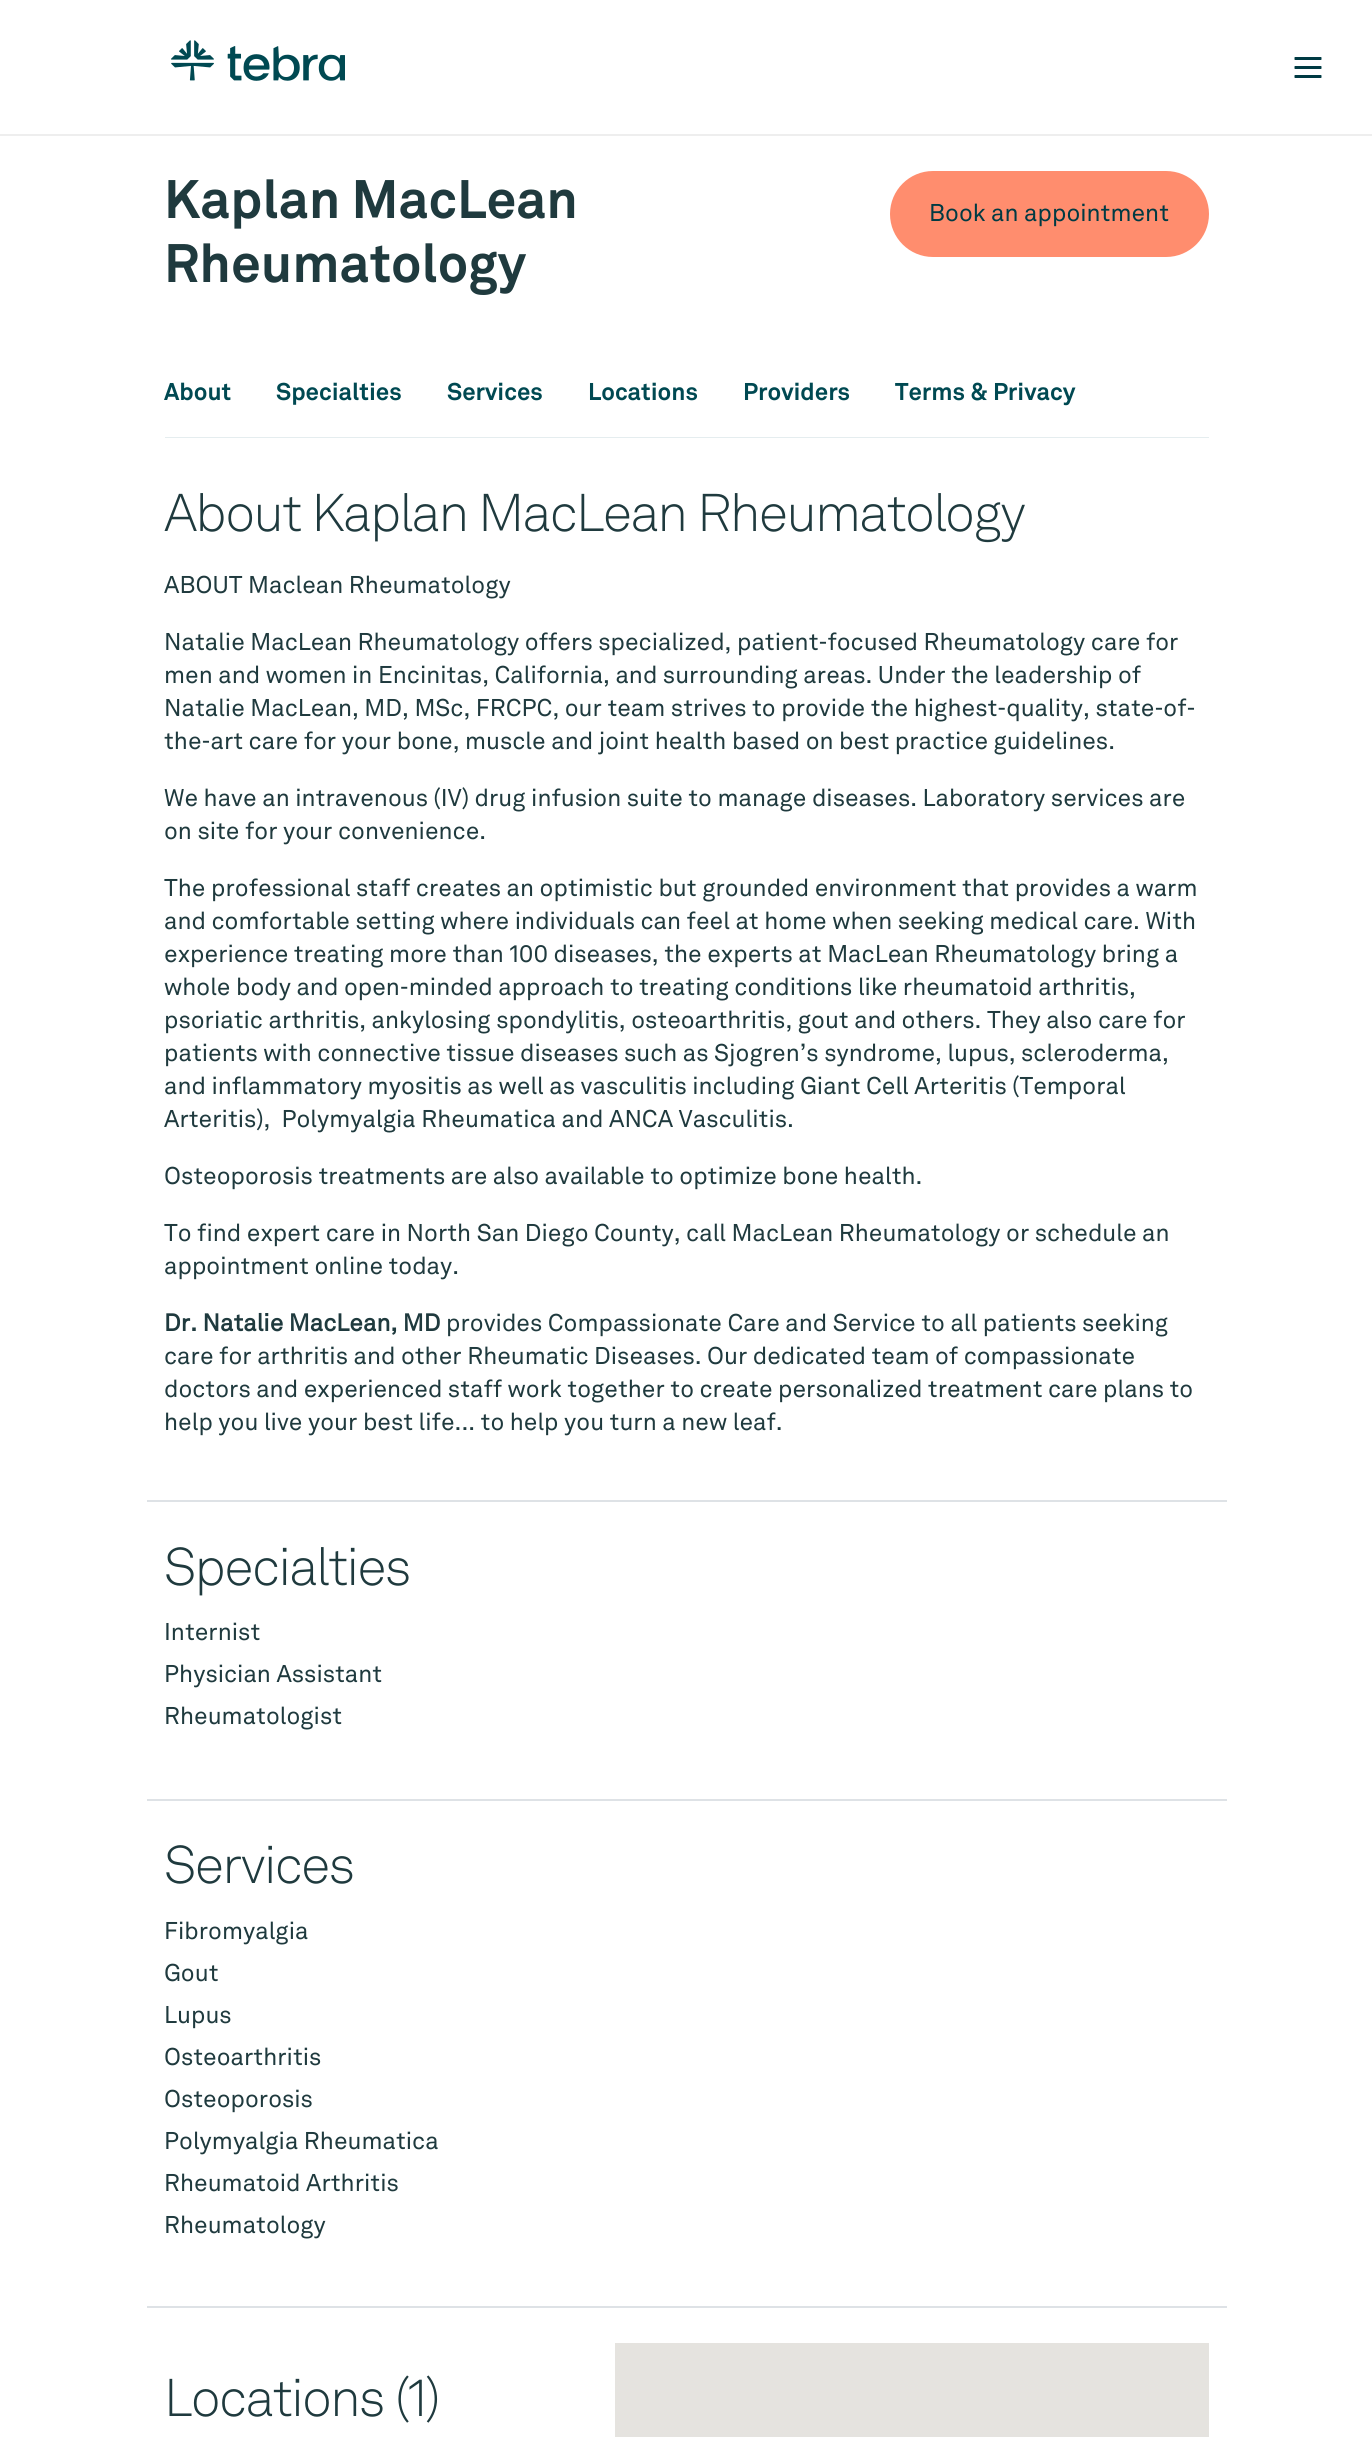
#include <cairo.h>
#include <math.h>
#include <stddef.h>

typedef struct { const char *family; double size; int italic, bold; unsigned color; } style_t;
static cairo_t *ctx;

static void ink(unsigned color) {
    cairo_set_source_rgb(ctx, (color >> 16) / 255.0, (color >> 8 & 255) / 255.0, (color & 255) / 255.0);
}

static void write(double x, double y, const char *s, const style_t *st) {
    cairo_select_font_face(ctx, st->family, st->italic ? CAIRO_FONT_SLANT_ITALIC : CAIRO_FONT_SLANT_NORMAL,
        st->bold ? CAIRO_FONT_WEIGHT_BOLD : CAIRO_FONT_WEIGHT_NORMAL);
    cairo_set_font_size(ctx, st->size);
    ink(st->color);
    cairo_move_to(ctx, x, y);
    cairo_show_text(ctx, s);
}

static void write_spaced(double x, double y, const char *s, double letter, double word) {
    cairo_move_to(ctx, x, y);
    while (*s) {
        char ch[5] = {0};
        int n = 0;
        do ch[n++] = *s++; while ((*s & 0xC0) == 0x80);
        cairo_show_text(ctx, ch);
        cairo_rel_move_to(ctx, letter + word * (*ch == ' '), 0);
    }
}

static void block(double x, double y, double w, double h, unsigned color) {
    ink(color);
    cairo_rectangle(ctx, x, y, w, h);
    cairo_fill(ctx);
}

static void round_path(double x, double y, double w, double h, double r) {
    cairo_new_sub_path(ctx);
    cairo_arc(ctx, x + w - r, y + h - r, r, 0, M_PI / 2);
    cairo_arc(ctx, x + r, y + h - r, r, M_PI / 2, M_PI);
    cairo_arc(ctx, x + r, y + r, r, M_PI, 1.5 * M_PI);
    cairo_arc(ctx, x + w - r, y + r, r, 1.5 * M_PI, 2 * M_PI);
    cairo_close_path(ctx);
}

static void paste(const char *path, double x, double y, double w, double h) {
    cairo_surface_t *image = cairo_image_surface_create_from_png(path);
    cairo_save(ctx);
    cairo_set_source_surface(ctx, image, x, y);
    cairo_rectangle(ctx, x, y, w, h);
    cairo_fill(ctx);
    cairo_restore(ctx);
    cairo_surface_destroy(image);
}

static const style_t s1 = {"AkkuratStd", 53.5, 0, 1, 0x1f3a3e};
static const style_t s2 = {"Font", 24, 0, 0, 0x003a43};
static const style_t s3 = {"AkkuratStd", 24, 0, 1, 0x004952};
static const style_t s4 = {"Font", 24, 0, 0, 0x1f3a3e};
static const style_t s5 = {"Font", 24, 0, 1, 0x1f3a3e};

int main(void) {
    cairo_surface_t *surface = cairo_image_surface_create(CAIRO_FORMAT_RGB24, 1372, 2437);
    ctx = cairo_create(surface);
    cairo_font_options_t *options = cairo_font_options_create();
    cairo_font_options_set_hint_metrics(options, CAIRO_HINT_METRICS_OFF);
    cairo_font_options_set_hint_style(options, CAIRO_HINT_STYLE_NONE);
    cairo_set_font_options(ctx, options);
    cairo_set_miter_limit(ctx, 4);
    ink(0xffffff);
    cairo_paint(ctx);
    block(0, 134, 1372, 2, 0xeeeeee);
    paste("pic1.png", 171, 40, 174, 41);
    paste("pic2.png", 1294, 57, 28, 21);
    write(164, 218, "Kaplan MacLean", &s1);
    write(164, 282, "Rheumatology", &s1);
    ink(0xff8d6e);
    round_path(891.5, 172.5, 316, 83, 41.5);
    cairo_fill_preserve(ctx);
    cairo_set_line_width(ctx, 3);
    cairo_stroke(ctx);
    write(929, 221, "Book an appointment", &s2);
    block(165, 437, 1044, 1, 0xe5edef);
    write(164, 400, "About", &s3);
    write(276, 400, "Specialties", &s3);
    write(447, 400, "Services", &s3);
    write(588, 400, "Locations", &s3);
    write(743, 400, "Providers", &s3);
    write(895, 400, "Terms & Privacy", &s3);
    block(147, 1500, 1080, 2, 0xdee2e6);
    cairo_select_font_face(ctx, "Font Light", CAIRO_FONT_SLANT_NORMAL, CAIRO_FONT_WEIGHT_NORMAL);
    cairo_set_font_size(ctx, 52.4);
    ink(0x1f3a3e);
    write_spaced(164, 531, "About Kaplan MacLean Rheumatology", -1.6, 0);
    write(164, 593, "ABOUT Maclean Rheumatology", &s4);
    write(164, 650, "Natalie MacLean Rheumatology offers specialized, patient-focused Rheumatology care for", &s4);
    write(164, 683, "men and women in Encinitas, California, and surrounding areas. Under the leadership of", &s4);
    write(164, 716, "Natalie MacLean, MD, MSc, FRCPC, our team strives to provide the highest-quality, state-of-", &s4);
    write(164, 749, "the-art care for your bone, muscle and joint health based on best practice guidelines.", &s4);
    write(164, 806, "We have an intravenous (IV) drug infusion suite to manage diseases. Laboratory services are", &s4);
    write(164, 839, "on site for your convenience.", &s4);
    write(164, 896, "The professional staff creates an optimistic but grounded environment that provides a warm", &s4);
    write(164, 929, "and comfortable setting where individuals can feel at home when seeking medical care. With", &s4);
    write(164, 962, "experience treating more than 100 diseases, the experts at MacLean Rheumatology bring a", &s4);
    write(164, 995, "whole body and open-minded approach to treating conditions like rheumatoid arthritis,", &s4);
    write(164, 1028, "psoriatic arthritis, ankylosing spondylitis, osteoarthritis, gout and others. They also care for", &s4);
    write(164, 1061, "patients with connective tissue diseases such as Sjogren’s syndrome, lupus, scleroderma,", &s4);
    write(164, 1094, "and inflammatory myositis as well as vasculitis including Giant Cell Arteritis (Temporal", &s4);
    write(164, 1127, "Arteritis),  Polymyalgia Rheumatica and ANCA Vasculitis.", &s4);
    write(164, 1184, "Osteoporosis treatments are also available to optimize bone health.", &s4);
    write(164, 1241, "To find expert care in North San Diego County, call MacLean Rheumatology or schedule an", &s4);
    write(164, 1274, "appointment online today.", &s4);
    write(164, 1331, "Dr. Natalie MacLean, MD", &s5);
    write(446, 1331, "provides Compassionate Care and Service to all patients seeking", &s4);
    write(164, 1364, "care for arthritis and other Rheumatic Diseases. Our dedicated team of compassionate", &s4);
    write(164, 1397, "doctors and experienced staff work together to create personalized treatment care plans to", &s4);
    write(164, 1430, "help you live your best life... to help you turn a new leaf.", &s4);
    block(147, 1799, 1080, 2, 0xdee2e6);
    cairo_select_font_face(ctx, "Font Light", CAIRO_FONT_SLANT_NORMAL, CAIRO_FONT_WEIGHT_NORMAL);
    cairo_set_font_size(ctx, 52.4);
    ink(0x1f3a3e);
    write_spaced(164, 1585, "Specialties", -1.6, 0);
    write(164, 1640, "Internist", &s4);
    write(164, 1682, "Physician Assistant", &s4);
    write(164, 1724, "Rheumatologist", &s4);
    block(147, 2306, 1080, 2, 0xdee2e6);
    cairo_select_font_face(ctx, "Font Light", CAIRO_FONT_SLANT_NORMAL, CAIRO_FONT_WEIGHT_NORMAL);
    cairo_set_font_size(ctx, 52.4);
    ink(0x1f3a3e);
    write_spaced(164, 1883, "Services", -1.6, 0);
    write(164, 1939, "Fibromyalgia", &s4);
    write(164, 1981, "Gout", &s4);
    write(164, 2023, "Lupus", &s4);
    write(164, 2065, "Osteoarthritis", &s4);
    write(164, 2107, "Osteoporosis", &s4);
    write(164, 2149, "Polymyalgia Rheumatica", &s4);
    write(164, 2191, "Rheumatoid Arthritis", &s4);
    write(164, 2233, "Rheumatology", &s4);
    cairo_select_font_face(ctx, "Font Light", CAIRO_FONT_SLANT_NORMAL, CAIRO_FONT_WEIGHT_NORMAL);
    cairo_set_font_size(ctx, 52.4);
    write_spaced(164, 2416, "Locations (1)", -1.6, 0);
    block(615, 2343, 594, 94, 0xe5e3df);
    cairo_surface_write_to_png(surface, "screenshot.png");
    cairo_font_options_destroy(options);
    cairo_destroy(ctx);
    cairo_surface_destroy(surface);
    return 0;
}
